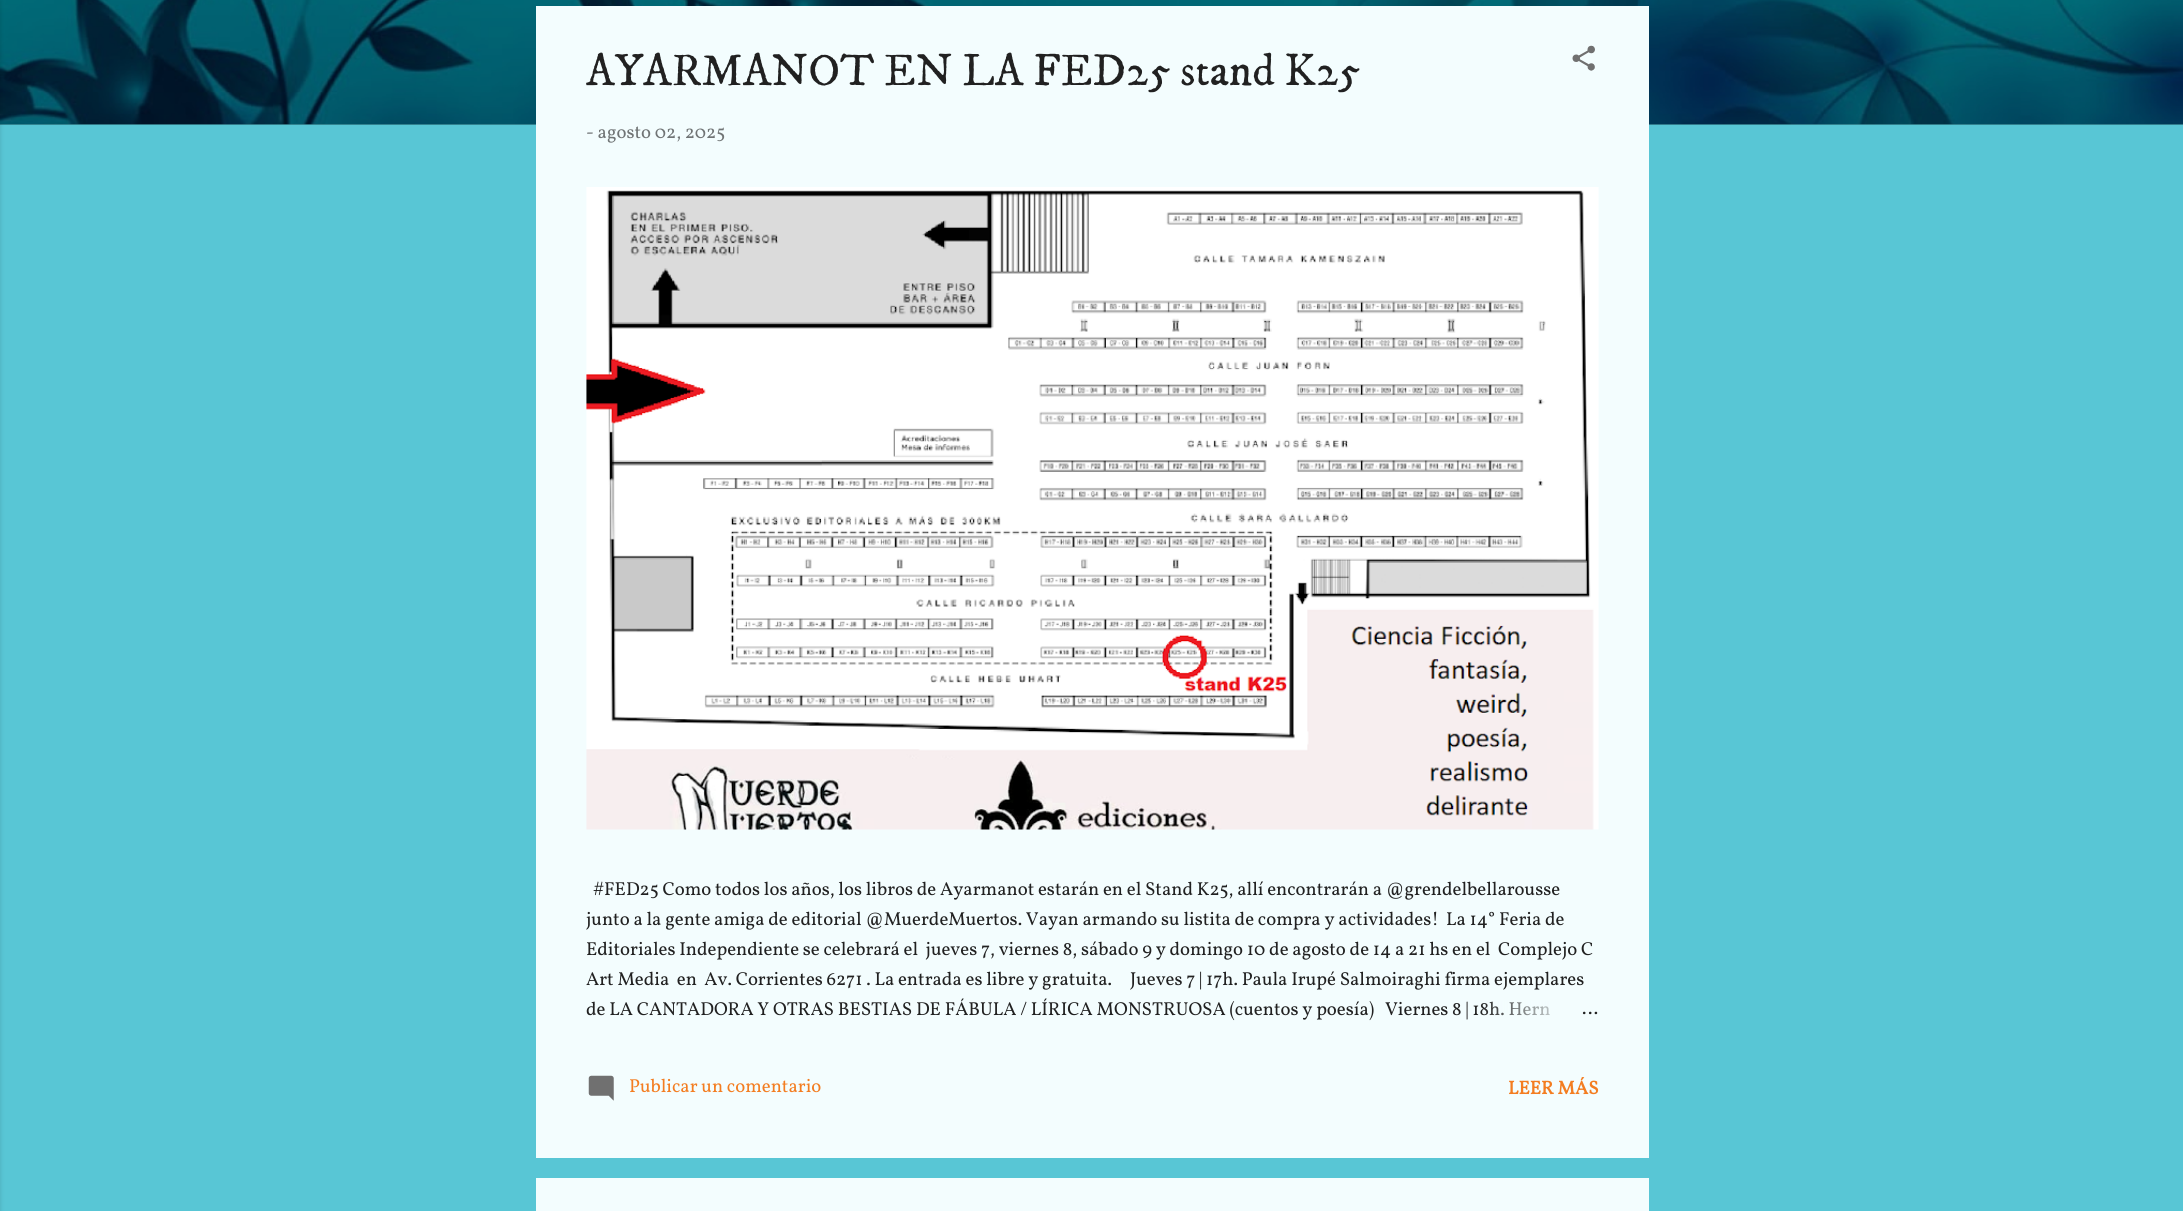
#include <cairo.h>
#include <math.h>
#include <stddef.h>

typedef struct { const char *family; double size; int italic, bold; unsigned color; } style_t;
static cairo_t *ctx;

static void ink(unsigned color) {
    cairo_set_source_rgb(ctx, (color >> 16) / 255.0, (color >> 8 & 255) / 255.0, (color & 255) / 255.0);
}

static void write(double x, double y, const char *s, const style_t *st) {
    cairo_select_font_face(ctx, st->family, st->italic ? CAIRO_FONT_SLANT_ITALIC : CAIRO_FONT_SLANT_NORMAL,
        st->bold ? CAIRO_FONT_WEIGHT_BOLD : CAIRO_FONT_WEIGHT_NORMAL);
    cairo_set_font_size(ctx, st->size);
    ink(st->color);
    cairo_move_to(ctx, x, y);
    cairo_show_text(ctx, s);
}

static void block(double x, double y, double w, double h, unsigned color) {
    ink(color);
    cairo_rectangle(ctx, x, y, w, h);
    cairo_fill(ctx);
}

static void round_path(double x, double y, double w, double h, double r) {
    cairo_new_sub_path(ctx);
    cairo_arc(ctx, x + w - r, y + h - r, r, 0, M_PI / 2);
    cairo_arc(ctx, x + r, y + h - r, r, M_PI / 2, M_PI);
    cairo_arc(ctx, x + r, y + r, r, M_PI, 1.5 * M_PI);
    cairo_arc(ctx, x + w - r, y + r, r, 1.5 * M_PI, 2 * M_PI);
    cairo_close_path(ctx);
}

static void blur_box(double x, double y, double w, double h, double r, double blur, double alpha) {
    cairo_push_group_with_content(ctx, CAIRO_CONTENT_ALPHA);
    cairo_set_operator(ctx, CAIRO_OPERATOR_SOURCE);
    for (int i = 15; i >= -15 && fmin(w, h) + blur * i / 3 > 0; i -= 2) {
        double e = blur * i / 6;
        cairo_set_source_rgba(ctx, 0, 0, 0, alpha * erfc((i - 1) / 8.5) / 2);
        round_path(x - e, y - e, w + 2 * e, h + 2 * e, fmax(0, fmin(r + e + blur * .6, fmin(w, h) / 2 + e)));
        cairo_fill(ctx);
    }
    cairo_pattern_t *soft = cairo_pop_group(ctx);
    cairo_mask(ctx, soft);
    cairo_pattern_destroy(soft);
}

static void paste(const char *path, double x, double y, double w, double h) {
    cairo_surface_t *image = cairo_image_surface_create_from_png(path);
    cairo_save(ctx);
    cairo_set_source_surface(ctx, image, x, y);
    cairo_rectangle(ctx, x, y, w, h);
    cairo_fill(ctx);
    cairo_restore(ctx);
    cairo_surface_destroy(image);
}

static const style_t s1 = {"IM FELL DW Pica", 45, 0, 0, 0x212121};
static const style_t s2 = {"Vollkorn", 18.75, 0, 0, 0x707475};
static const style_t s3 = {"Vollkorn", 18.75, 0, 0, 0x212121};
static const style_t s4 = {"Vollkorn", 18.75, 0, 0, 0xf37d21};
static const style_t s5 = {"Vollkorn", 18.75, 0, 1, 0xf37d21};

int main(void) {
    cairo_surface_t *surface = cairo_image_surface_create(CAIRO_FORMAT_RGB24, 2183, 1211);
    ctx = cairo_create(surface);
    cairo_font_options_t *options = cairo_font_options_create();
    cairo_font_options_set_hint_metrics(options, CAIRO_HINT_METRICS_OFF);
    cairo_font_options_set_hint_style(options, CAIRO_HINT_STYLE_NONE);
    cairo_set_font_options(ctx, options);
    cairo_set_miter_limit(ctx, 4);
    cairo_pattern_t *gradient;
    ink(0x58c6d5);
    cairo_paint(ctx);
    block(0, 124, 2183, 1, 0x41939e);
    paste("pic1.png", 0, 0, 2183, 125);
    ink(0x000000);
    blur_box(-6, 1, 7, 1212, 0, 2, 0.1);
    block(536, 6, 1113, 1152, 0xf3fdfe);
    write(586, 85, "AYARMANOT EN LA FED25 stand K25", &s1);
    paste("pic2.png", 1572, 45, 23, 26);
    write(586, 138, "- agosto 02, 2025", &s2);
    paste("pic3.png", 586, 187, 1013, 643);
    write(593, 895, "#FED25 Como todos los años, los libros de Ayarmanot estarán en el Stand K25, allí encontrarán a @grendelbellarousse", &s3);
    write(586, 925, "junto a la gente amiga de editorial @MuerdeMuertos. Vayan armando su listita de compra y actividades!", &s3);
    write(1446, 925, "La 14° Feria de", &s3);
    write(586, 955, "Editoriales Independiente se celebrará el  jueves 7, viernes 8, sábado 9 y domingo 10 de agosto de 14 a 21 hs en el  Complejo C", &s3);
    write(586, 985, "Art Media  en  Av. Corrientes 6271 . La entrada es libre y gratuita.", &s3);
    write(1130, 985, "Jueves 7 | 17h. Paula Irupé Salmoiraghi firma ejemplares", &s3);
    write(586, 1015, "de LA CANTADORA Y OTRAS BESTIAS DE FÁBULA / LÍRICA MONSTRUOSA (cuentos y poesía)", &s3);
    write(1385, 1015, "Viernes 8 | 18h. Hern", &s3);
    gradient = cairo_pattern_create_linear(1599, 1011, 1479, 1011);
    cairo_pattern_add_color_stop_rgba(gradient, 0, 0.953, 0.992, 0.996, 1);
    cairo_pattern_add_color_stop_rgba(gradient, 0.2, 0.953, 0.992, 0.996, 1);
    cairo_pattern_add_color_stop_rgba(gradient, 1, 0.953, 0.992, 0.996, 0);
    cairo_set_source(ctx, gradient);
    cairo_pattern_destroy(gradient);
    cairo_rectangle(ctx, 1481, 1001, 69, 15);
    cairo_fill(ctx);
    write(1582, 1014, "…", &s3);
    paste("pic4.png", 588, 1075, 26, 26);
    write(629, 1092, "Publicar un comentario", &s4);
    write(1508, 1094, "LEER MÁS", &s5);
    block(536, 1178, 1113, 33, 0xf3fdfe);
    cairo_surface_write_to_png(surface, "screenshot.png");
    cairo_font_options_destroy(options);
    cairo_destroy(ctx);
    cairo_surface_destroy(surface);
    return 0;
}
